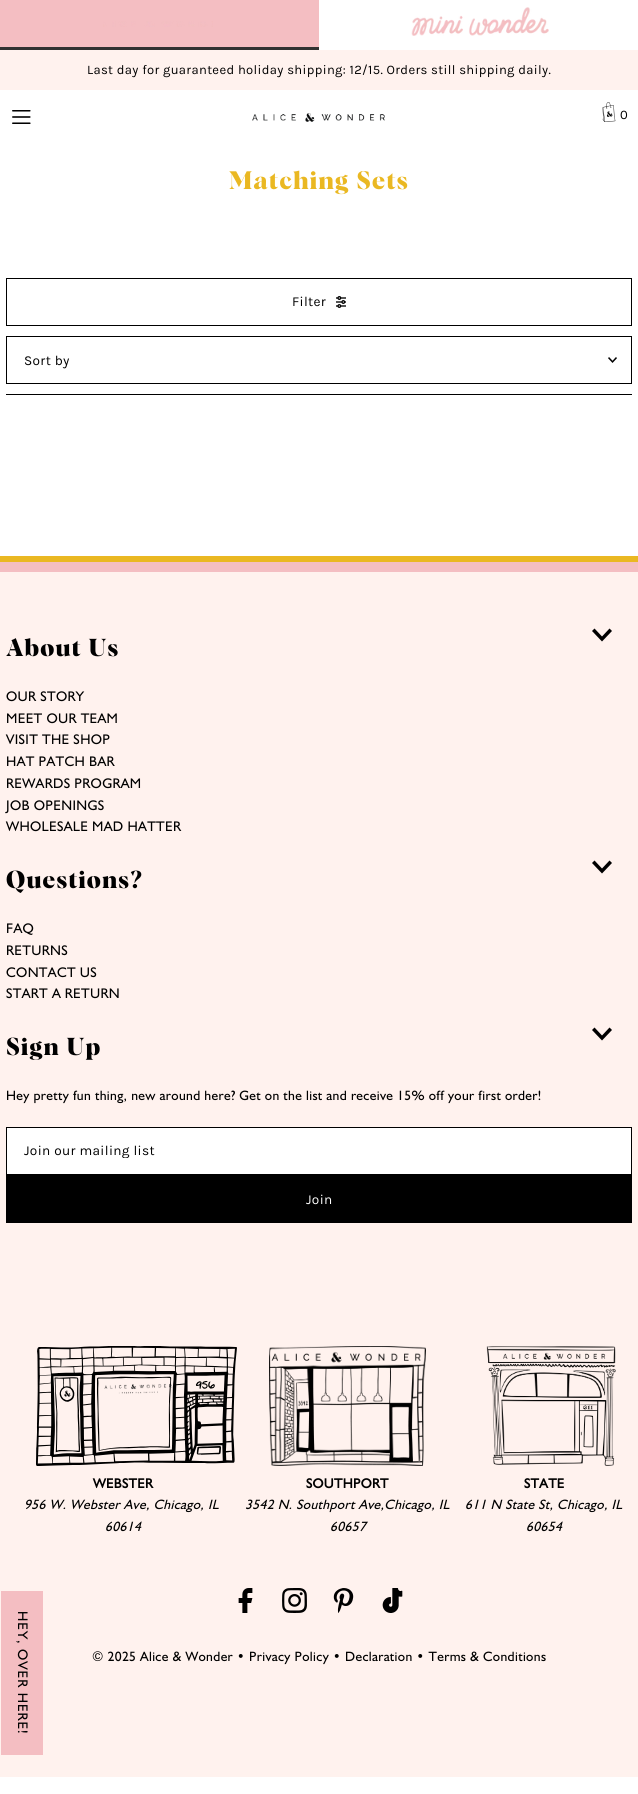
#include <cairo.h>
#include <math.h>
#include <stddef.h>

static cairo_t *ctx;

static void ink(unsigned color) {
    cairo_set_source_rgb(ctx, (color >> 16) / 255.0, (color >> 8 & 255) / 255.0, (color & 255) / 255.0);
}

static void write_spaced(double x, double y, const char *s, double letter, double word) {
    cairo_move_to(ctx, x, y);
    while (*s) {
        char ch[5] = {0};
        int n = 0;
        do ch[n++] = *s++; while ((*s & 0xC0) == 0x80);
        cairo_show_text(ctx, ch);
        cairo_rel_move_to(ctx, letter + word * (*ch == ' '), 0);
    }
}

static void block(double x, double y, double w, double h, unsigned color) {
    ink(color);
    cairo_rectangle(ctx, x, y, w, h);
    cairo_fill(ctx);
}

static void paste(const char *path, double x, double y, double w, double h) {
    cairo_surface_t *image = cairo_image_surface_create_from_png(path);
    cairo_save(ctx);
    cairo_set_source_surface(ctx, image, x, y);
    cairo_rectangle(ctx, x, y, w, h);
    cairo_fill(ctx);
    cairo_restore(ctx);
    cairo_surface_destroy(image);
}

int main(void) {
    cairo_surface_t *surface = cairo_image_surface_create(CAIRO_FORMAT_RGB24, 638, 1794);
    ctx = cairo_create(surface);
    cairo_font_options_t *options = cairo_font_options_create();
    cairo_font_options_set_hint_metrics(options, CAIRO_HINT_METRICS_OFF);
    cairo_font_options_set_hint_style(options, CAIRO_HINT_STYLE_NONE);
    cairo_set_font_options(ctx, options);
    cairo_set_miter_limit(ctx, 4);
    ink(0xffffff);
    cairo_paint(ctx);
    block(0, 0, 319, 47, 0xf4bec2);
    paste("pic1.png", 103, 21, 110, 6);
    block(0, 47, 319, 3, 0x313131);
    paste("pic2.png", 411, 7, 138, 29);
    block(0, 50, 638, 40, 0xfff2ee);
    cairo_select_font_face(ctx, "Karla", CAIRO_FONT_SLANT_NORMAL, CAIRO_FONT_WEIGHT_NORMAL);
    cairo_set_font_size(ctx, 13);
    ink(0x000000);
    write_spaced(87, 74, "Last day for guaranteed holiday shipping: 12/15. Orders still shipping daily.", 0.35, 0);
    paste("pic3.png", 12, 110, 19, 14);
    paste("pic4.png", 252, 113, 133, 9);
    paste("pic5.png", 602, 102, 14, 20);
    write_spaced(620, 119, "0", 1, 0);
    cairo_select_font_face(ctx, "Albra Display", CAIRO_FONT_SLANT_NORMAL, CAIRO_FONT_WEIGHT_BOLD);
    cairo_set_font_size(ctx, 24.75);
    ink(0xeab822);
    write_spaced(229, 189, "Matching Sets", 1.25, 0);
    block(6, 394, 626, 1, 0x000000);
    cairo_rectangle(ctx, 6.5, 278.5, 625, 47);
    cairo_set_line_width(ctx, 1);
    cairo_stroke(ctx);
    cairo_select_font_face(ctx, "Karla", CAIRO_FONT_SLANT_NORMAL, CAIRO_FONT_WEIGHT_NORMAL);
    cairo_set_font_size(ctx, 13.6);
    write_spaced(292, 306, "Filter", 0.35, 0);
    paste("pic6.png", 336, 296, 10, 12);
    cairo_rectangle(ctx, 6.5, 336.5, 625, 47);
    cairo_stroke(ctx);
    write_spaced(24, 365, "Sort by", 0.35, 0);
    paste("pic7.png", 608, 357, 9, 6);
    block(0, 556, 638, 6, 0xeab822);
    block(0, 562, 638, 10, 0xf4bec2);
    block(0, 572, 638, 1205, 0xfff2ee);
    ink(0x000000);
    cairo_new_path(ctx);
    cairo_move_to(ctx, 609.5, 628.5);
    cairo_line_to(ctx, 602, 636.5);
    cairo_line_to(ctx, 594.5, 628.5);
    cairo_line_to(ctx, 592, 631);
    cairo_line_to(ctx, 602, 641.5);
    cairo_line_to(ctx, 612, 631);
    cairo_close_path(ctx);
    cairo_fill(ctx);
    cairo_select_font_face(ctx, "Albra Display", CAIRO_FONT_SLANT_NORMAL, CAIRO_FONT_WEIGHT_BOLD);
    cairo_set_font_size(ctx, 24);
    write_spaced(6, 656, "About Us", 1.25, 0);
    cairo_select_font_face(ctx, "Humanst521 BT", CAIRO_FONT_SLANT_NORMAL, CAIRO_FONT_WEIGHT_NORMAL);
    cairo_set_font_size(ctx, 14);
    write_spaced(6, 701, "OUR STORY", 0.35, 0);
    write_spaced(6, 723, "MEET OUR TEAM", 0.35, 0);
    write_spaced(6, 744, "VISIT THE SHOP", 0.35, 0);
    write_spaced(6, 766, "HAT PATCH BAR", 0.35, 0);
    write_spaced(6, 788, "REWARDS PROGRAM", 0.35, 0);
    write_spaced(6, 810, "JOB OPENINGS", 0.35, 0);
    write_spaced(6, 831, "WHOLESALE MAD HATTER", 0.35, 0);
    cairo_new_path(ctx);
    cairo_move_to(ctx, 609.5, 860.5);
    cairo_line_to(ctx, 602, 868.5);
    cairo_line_to(ctx, 594.5, 860.5);
    cairo_line_to(ctx, 592, 863);
    cairo_line_to(ctx, 602, 873.5);
    cairo_line_to(ctx, 612, 863);
    cairo_close_path(ctx);
    cairo_fill(ctx);
    cairo_select_font_face(ctx, "Albra Display", CAIRO_FONT_SLANT_NORMAL, CAIRO_FONT_WEIGHT_BOLD);
    cairo_set_font_size(ctx, 24);
    write_spaced(6, 888, "Questions?", 1.25, 0);
    cairo_select_font_face(ctx, "Humanst521 BT", CAIRO_FONT_SLANT_NORMAL, CAIRO_FONT_WEIGHT_NORMAL);
    cairo_set_font_size(ctx, 14);
    write_spaced(6, 933, "FAQ", 0.35, 0);
    write_spaced(6, 955, "RETURNS", 0.35, 0);
    write_spaced(6, 977, "CONTACT US", 0.35, 0);
    write_spaced(6, 998, "START A RETURN", 0.35, 0);
    cairo_new_path(ctx);
    cairo_move_to(ctx, 609.5, 1027.5);
    cairo_line_to(ctx, 602, 1035.5);
    cairo_line_to(ctx, 594.5, 1027.5);
    cairo_line_to(ctx, 592, 1030);
    cairo_line_to(ctx, 602, 1040.5);
    cairo_line_to(ctx, 612, 1030);
    cairo_close_path(ctx);
    cairo_fill(ctx);
    cairo_select_font_face(ctx, "Albra Display", CAIRO_FONT_SLANT_NORMAL, CAIRO_FONT_WEIGHT_BOLD);
    cairo_set_font_size(ctx, 24);
    write_spaced(6, 1055, "Sign Up", 1.25, 0);
    cairo_select_font_face(ctx, "Humanst521 BT", CAIRO_FONT_SLANT_NORMAL, CAIRO_FONT_WEIGHT_NORMAL);
    cairo_set_font_size(ctx, 13.6);
    write_spaced(6, 1100, "Hey pretty fun thing, new around here? Get on the list and receive 15% off your first order!", 0.35, 0);
    ink(0xffffff);
    cairo_rectangle(ctx, 6.5, 1127.5, 625, 47);
    cairo_fill_preserve(ctx);
    ink(0x000000);
    cairo_stroke(ctx);
    cairo_save(ctx);
    cairo_rectangle(ctx, 7, 1143, 624, 15);
    cairo_clip(ctx);
    cairo_select_font_face(ctx, "Karla", CAIRO_FONT_SLANT_NORMAL, CAIRO_FONT_WEIGHT_NORMAL);
    write_spaced(24, 1155, "Join our mailing list", 0.35, 0);
    cairo_restore(ctx);
    block(6, 1175, 626, 48, 0x000000);
    cairo_select_font_face(ctx, "Karla", CAIRO_FONT_SLANT_NORMAL, CAIRO_FONT_WEIGHT_NORMAL);
    ink(0xffffff);
    write_spaced(306, 1204, "Join", 0.35, 0);
    paste("pic8.png", 36, 1346, 201, 120);
    cairo_select_font_face(ctx, "Humanst521 BT", CAIRO_FONT_SLANT_NORMAL, CAIRO_FONT_WEIGHT_BOLD);
    ink(0x000000);
    write_spaced(93, 1488, "WEBSTER", 0.35, 0);
    cairo_select_font_face(ctx, "Humanst521 BT", CAIRO_FONT_SLANT_ITALIC, CAIRO_FONT_WEIGHT_NORMAL);
    write_spaced(24, 1509, "956 W. Webster Ave, Chicago, IL", 0.35, 0);
    write_spaced(105, 1531, "60614", 0.35, 0);
    paste("pic9.png", 269, 1346, 157, 120);
    cairo_select_font_face(ctx, "Humanst521 BT", CAIRO_FONT_SLANT_NORMAL, CAIRO_FONT_WEIGHT_BOLD);
    write_spaced(306, 1488, "SOUTHPORT", 0.35, 0);
    cairo_select_font_face(ctx, "Humanst521 BT", CAIRO_FONT_SLANT_ITALIC, CAIRO_FONT_WEIGHT_NORMAL);
    write_spaced(245, 1509, "3542 N. Southport Ave,Chicago, IL", 0.35, 0);
    write_spaced(330, 1531, "60657", 0.35, 0);
    paste("pic10.png", 486, 1346, 130, 120);
    cairo_select_font_face(ctx, "Humanst521 BT", CAIRO_FONT_SLANT_NORMAL, CAIRO_FONT_WEIGHT_BOLD);
    write_spaced(524, 1488, "STATE", 0.35, 0);
    cairo_select_font_face(ctx, "Humanst521 BT", CAIRO_FONT_SLANT_ITALIC, CAIRO_FONT_WEIGHT_NORMAL);
    write_spaced(465, 1509, "611 N State St, Chicago, IL", 0.35, 0);
    write_spaced(526, 1531, "60654", 0.35, 0);
    paste("pic11.png", 238, 1588, 15, 25);
    paste("pic12.png", 282, 1588, 25, 25);
    paste("pic13.png", 333, 1588, 21, 25);
    paste("pic14.png", 382, 1588, 21, 25);
    cairo_select_font_face(ctx, "Humanst521 BT", CAIRO_FONT_SLANT_NORMAL, CAIRO_FONT_WEIGHT_NORMAL);
    write_spaced(92, 1661, "© 2025 Alice & Wonder • Privacy Policy • Declaration • Terms & Conditions", 0.35, 0);
    block(1, 1591, 42, 164, 0xf4bec2);
    cairo_set_font_size(ctx, 14);
    ink(0x000000);
    cairo_save(ctx);
    cairo_translate(ctx, 18, 1611);
    cairo_rotate(ctx, 90 * M_PI / 180);
    write_spaced(0, 0, "HEY, OVER HERE!", 1, 0);
    cairo_restore(ctx);
    cairo_surface_write_to_png(surface, "screenshot.png");
    cairo_font_options_destroy(options);
    cairo_destroy(ctx);
    cairo_surface_destroy(surface);
    return 0;
}
